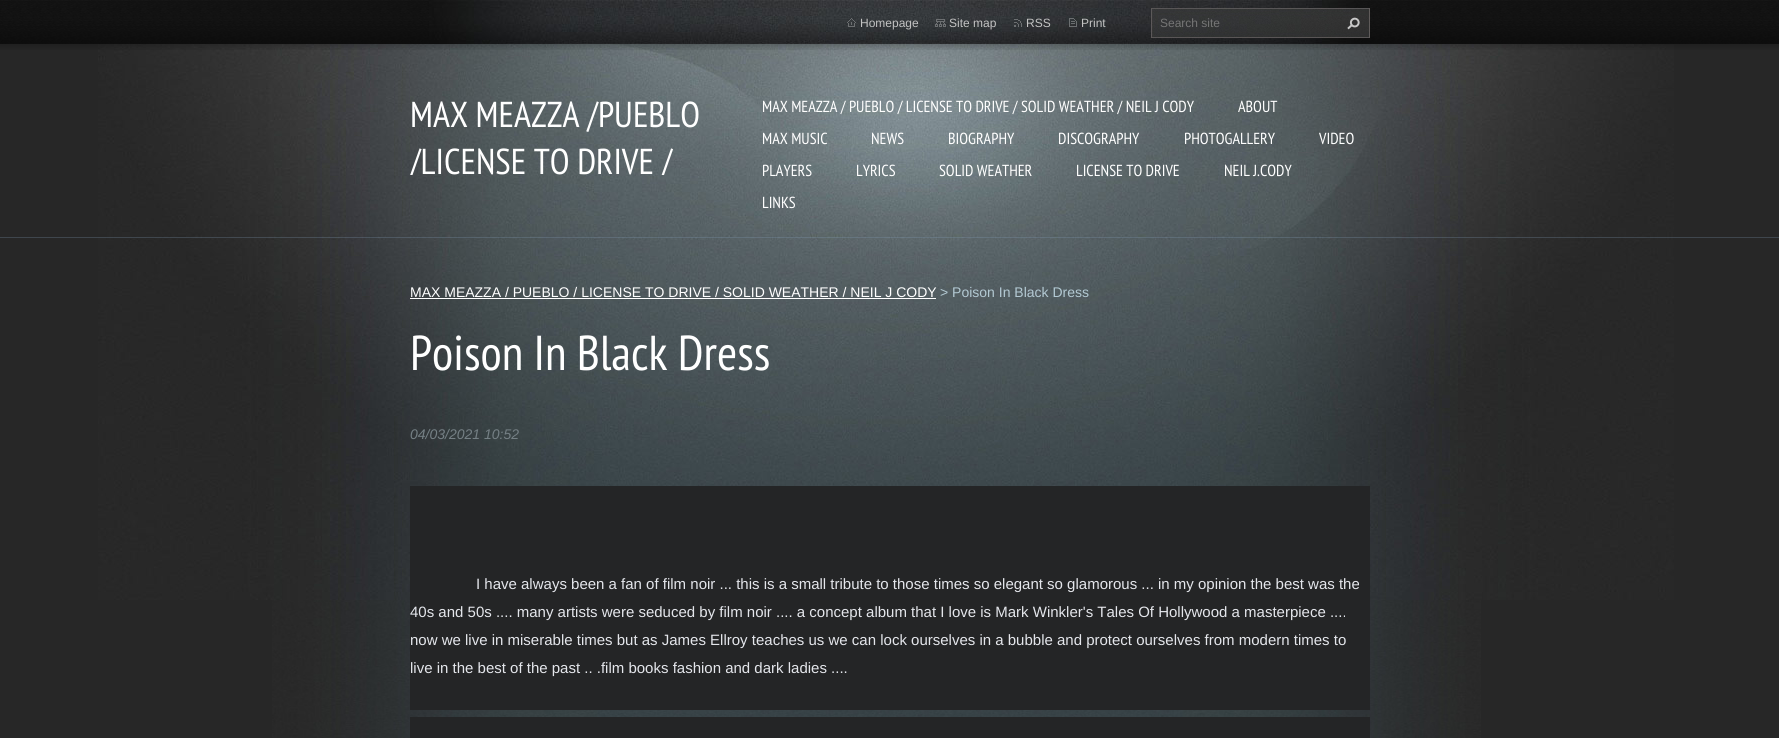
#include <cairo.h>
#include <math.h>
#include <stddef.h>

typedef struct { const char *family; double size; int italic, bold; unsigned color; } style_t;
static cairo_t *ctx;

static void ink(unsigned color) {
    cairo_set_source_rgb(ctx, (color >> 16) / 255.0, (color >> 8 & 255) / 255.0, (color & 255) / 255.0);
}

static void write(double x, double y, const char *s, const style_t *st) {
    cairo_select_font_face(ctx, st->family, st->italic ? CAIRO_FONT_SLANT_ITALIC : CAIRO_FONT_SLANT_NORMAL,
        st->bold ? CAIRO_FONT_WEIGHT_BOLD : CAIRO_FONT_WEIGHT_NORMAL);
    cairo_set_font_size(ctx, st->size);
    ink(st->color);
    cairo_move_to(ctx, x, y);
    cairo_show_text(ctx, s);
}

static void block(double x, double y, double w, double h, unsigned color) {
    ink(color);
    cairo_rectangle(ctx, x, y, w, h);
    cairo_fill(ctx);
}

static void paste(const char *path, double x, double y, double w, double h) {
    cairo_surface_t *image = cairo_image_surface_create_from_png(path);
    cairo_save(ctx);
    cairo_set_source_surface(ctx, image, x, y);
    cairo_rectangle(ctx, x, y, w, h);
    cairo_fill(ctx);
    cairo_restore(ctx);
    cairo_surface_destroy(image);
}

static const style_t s1 = {"Liberation Sans", 12, 0, 0, 0xc3c3c3};
static const style_t s2 = {"Liberation Sans", 12, 0, 0, 0x757575};
static const style_t s3 = {"PT Sans Narrow", 36, 0, 0, 0xffffff};
static const style_t s4 = {"PT Sans Narrow", 16, 0, 0, 0xffffff};
static const style_t s5 = {"Liberation Sans", 14, 0, 0, 0xffffff};
static const style_t s6 = {"Liberation Sans", 14, 0, 0, 0xb3c9d3};
static const style_t s7 = {"PT Sans Narrow", 49, 0, 0, 0xffffff};
static const style_t s8 = {"Liberation Sans", 14, 1, 0, 0x758085};
static const style_t s9 = {"Liberation Sans", 15, 0, 0, 0xe4e6eb};

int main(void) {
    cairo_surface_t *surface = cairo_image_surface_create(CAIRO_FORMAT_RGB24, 1779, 738);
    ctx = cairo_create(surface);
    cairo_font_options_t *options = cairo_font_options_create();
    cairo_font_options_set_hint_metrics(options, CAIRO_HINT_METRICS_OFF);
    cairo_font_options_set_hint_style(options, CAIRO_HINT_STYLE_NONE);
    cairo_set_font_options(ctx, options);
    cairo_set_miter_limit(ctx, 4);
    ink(0x272727);
    cairo_paint(ctx);
    paste("pic1.png", 272, 600, 1209, 138);
    paste("pic2.png", 98, 44, 1576, 556);
    cairo_set_source_rgba(ctx, 0.514, 0.62, 0.725, 0.26);
    cairo_rectangle(ctx, 0, 237, 1779, 1);
    cairo_fill(ctx);
    paste("pic3.png", 0, 0, 1779, 50);
    paste("pic4.png", 429, 0, 925, 44);
    paste("pic5.png", 847, 18, 9, 9);
    write(860, 27, "Homepage", &s1);
    paste("pic6.png", 935, 19, 11, 8);
    write(949, 27, "Site map", &s1);
    paste("pic7.png", 1014, 19, 8, 8);
    write(1026, 27, "RSS", &s1);
    paste("pic8.png", 1069, 18, 8, 9);
    write(1081, 27, "Print", &s1);
    paste("pic9.png", 1151, 8, 219, 30);
    write(1160, 27, "Search site", &s2);
    paste("pic10.png", 1347, 17, 13, 13);
    write(410, 127, "MAX MEAZZA /PUEBLO", &s3);
    cairo_save(ctx);
    cairo_rectangle(ctx, 410, 80, 300, 95);
    cairo_clip(ctx);
    write(410, 174, "/LICENSE TO DRIVE /", &s3);
    cairo_restore(ctx);
    write(762, 112, "MAX MEAZZA / PUEBLO / LICENSE TO DRIVE / SOLID WEATHER / NEIL J CODY", &s4);
    write(1238, 112, "ABOUT", &s4);
    write(762, 144, "MAX MUSIC", &s4);
    write(871, 144, "NEWS", &s4);
    write(948, 144, "BIOGRAPHY", &s4);
    write(1058, 144, "DISCOGRAPHY", &s4);
    write(1184, 144, "PHOTOGALLERY", &s4);
    write(1319, 144, "VIDEO", &s4);
    write(762, 176, "PLAYERS", &s4);
    write(856, 176, "LYRICS", &s4);
    write(939, 176, "SOLID WEATHER", &s4);
    write(1076, 176, "LICENSE TO DRIVE", &s4);
    write(1224, 176, "NEIL J.CODY", &s4);
    write(762, 208, "LINKS", &s4);
    write(410, 297, "MAX MEAZZA / PUEBLO / LICENSE TO DRIVE / SOLID WEATHER / NEIL J CODY", &s5);
    block(410, 298, 526, 1, 0xffffff);
    write(940, 297, "> Poison In Black Dress", &s6);
    write(410, 370, "Poison In Black Dress", &s7);
    write(410, 439, "04/03/2021 10:52", &s8);
    block(410, 486, 960, 224, 0x242526);
    write(476, 589, "I have always been a fan of film noir ... this is a small tribute to those times so elegant so glamorous ... in my opinion the best was the", &s9);
    write(410, 617, "40s and 50s .... many artists were seduced by film noir .... a concept album that I love is Mark Winkler's Tales Of Hollywood a masterpiece ....", &s9);
    write(410, 645, "now we live in miserable times but as James Ellroy teaches us we can lock ourselves in a bubble and protect ourselves from modern times to", &s9);
    write(410, 673, "live in the best of the past .. .film books fashion and dark ladies ....", &s9);
    block(410, 717, 960, 21, 0x242526);
    cairo_surface_write_to_png(surface, "screenshot.png");
    cairo_font_options_destroy(options);
    cairo_destroy(ctx);
    cairo_surface_destroy(surface);
    return 0;
}
